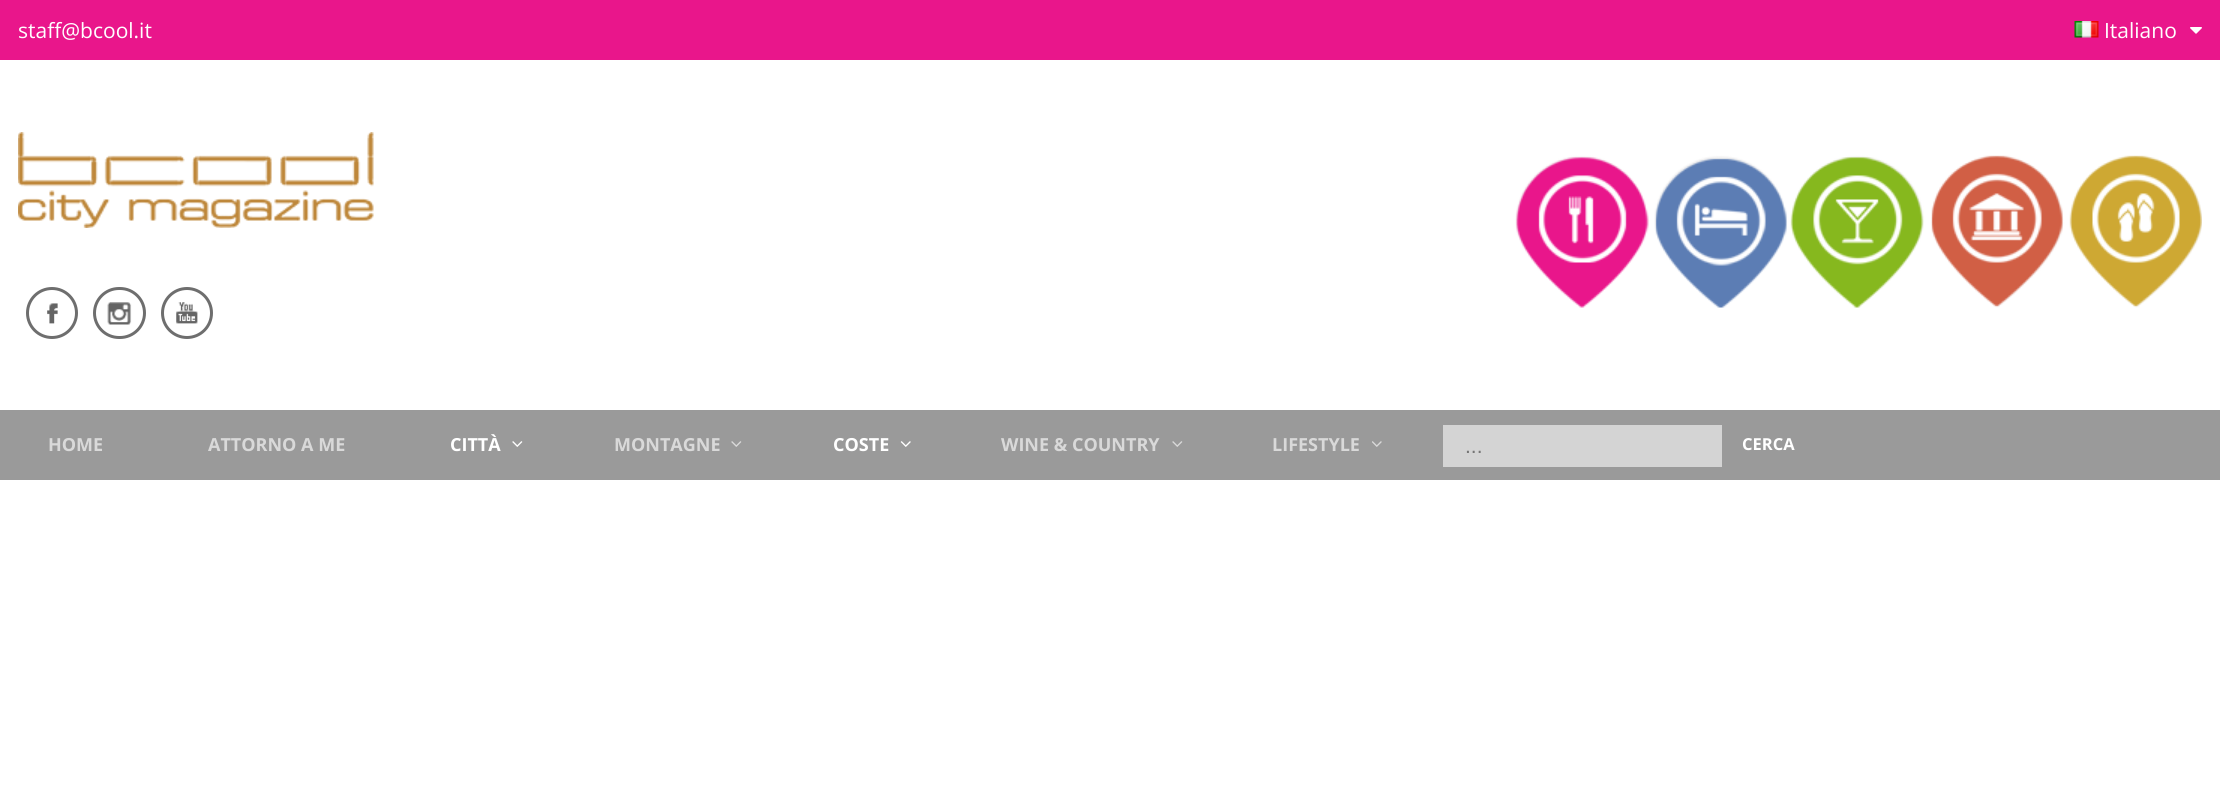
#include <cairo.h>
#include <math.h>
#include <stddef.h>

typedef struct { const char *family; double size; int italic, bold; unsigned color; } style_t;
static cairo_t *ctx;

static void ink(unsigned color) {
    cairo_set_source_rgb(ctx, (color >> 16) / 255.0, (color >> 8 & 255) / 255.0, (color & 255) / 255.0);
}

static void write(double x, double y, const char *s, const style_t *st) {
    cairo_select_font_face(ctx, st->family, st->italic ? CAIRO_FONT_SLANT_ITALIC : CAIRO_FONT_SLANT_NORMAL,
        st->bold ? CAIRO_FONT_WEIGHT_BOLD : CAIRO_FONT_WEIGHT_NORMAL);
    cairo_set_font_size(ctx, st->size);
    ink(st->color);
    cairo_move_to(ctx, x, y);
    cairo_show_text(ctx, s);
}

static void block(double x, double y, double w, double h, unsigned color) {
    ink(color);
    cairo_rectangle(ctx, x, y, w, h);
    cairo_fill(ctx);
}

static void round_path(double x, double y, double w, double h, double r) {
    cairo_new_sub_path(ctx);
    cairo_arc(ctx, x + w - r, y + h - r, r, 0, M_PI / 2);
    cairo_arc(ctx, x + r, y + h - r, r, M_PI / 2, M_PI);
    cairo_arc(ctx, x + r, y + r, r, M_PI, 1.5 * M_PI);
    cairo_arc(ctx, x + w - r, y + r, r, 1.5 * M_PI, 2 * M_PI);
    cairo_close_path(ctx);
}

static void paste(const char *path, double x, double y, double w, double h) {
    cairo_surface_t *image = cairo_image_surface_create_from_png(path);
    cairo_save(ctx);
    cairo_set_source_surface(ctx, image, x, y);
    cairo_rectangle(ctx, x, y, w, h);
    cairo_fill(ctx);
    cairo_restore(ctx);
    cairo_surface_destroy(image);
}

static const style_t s1 = {"Open Sans", 21, 0, 0, 0xffffff};
static const style_t s2 = {"Open Sans", 18, 0, 1, 0xd9d9d9};
static const style_t s3 = {"Open Sans", 18, 0, 1, 0xffffff};
static const style_t s4 = {"Open Sans", 16.5, 0, 1, 0xffffff};
static const style_t s5 = {"Liberation Sans", 21, 0, 0, 0x757575};

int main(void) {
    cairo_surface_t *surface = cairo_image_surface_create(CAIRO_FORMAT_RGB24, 2220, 790);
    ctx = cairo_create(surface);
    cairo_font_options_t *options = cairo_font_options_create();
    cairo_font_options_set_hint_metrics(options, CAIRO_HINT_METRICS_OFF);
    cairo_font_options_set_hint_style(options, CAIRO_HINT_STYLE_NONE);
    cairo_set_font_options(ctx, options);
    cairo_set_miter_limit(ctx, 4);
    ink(0xffffff);
    cairo_paint(ctx);
    block(0, 0, 2220, 60, 0xe9168b);
    write(18, 38, "staff@bcool.it", &s1);
    paste("pic1.png", 2074, 21, 25, 17);
    write(2104, 38, "Italiano", &s1);
    paste("pic2.png", 2190, 27, 12, 7);
    paste("pic3.png", 18, 132, 356, 96);
    paste("pic4.png", 1515, 155, 687, 153);
    cairo_arc(ctx, 52, 313, 24.5, 0, 2 * M_PI);
    ink(0x6e6e6e);
    cairo_set_line_width(ctx, 3);
    cairo_stroke(ctx);
    paste("pic5.png", 47, 303, 11, 21);
    round_path(94.5, 288.5, 50, 49, 24.5);
    cairo_stroke(ctx);
    paste("pic6.png", 107, 302, 25, 23);
    cairo_arc(ctx, 187, 313, 24.5, 0, 2 * M_PI);
    cairo_stroke(ctx);
    paste("pic7.png", 176, 302, 22, 22);
    block(0, 410, 2220, 70, 0x9a9a9a);
    write(48, 451, "HOME", &s2);
    write(208, 451, "ATTORNO A ME", &s2);
    write(450, 451, "CITTÀ", &s3);
    paste("pic8.png", 512, 441, 11, 6);
    write(614, 451, "MONTAGNE", &s2);
    paste("pic9.png", 731, 441, 11, 6);
    write(833, 451, "COSTE", &s3);
    paste("pic10.png", 900, 441, 11, 6);
    write(1001, 451, "WINE & COUNTRY", &s2);
    paste("pic9.png", 1172, 441, 11, 6);
    write(1272, 451, "LIFESTYLE", &s2);
    paste("pic11.png", 1372, 441, 10, 6);
    write(1742, 450, "CERCA", &s4);
    block(1443, 425, 279, 42, 0xd4d4d4);
    write(1465, 453, "...", &s5);
    cairo_surface_write_to_png(surface, "screenshot.png");
    cairo_font_options_destroy(options);
    cairo_destroy(ctx);
    cairo_surface_destroy(surface);
    return 0;
}
